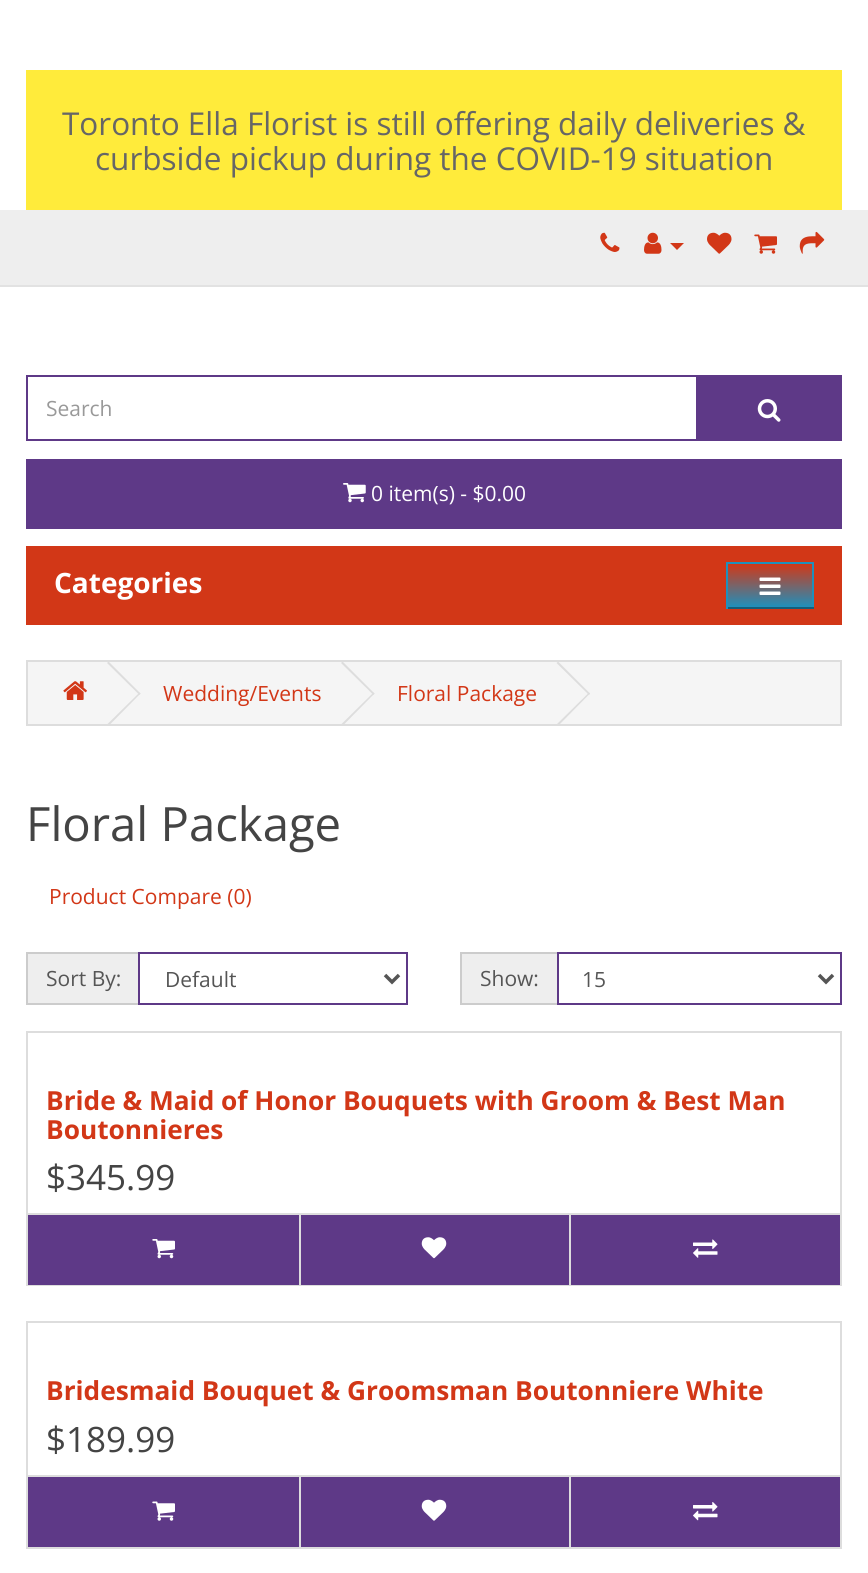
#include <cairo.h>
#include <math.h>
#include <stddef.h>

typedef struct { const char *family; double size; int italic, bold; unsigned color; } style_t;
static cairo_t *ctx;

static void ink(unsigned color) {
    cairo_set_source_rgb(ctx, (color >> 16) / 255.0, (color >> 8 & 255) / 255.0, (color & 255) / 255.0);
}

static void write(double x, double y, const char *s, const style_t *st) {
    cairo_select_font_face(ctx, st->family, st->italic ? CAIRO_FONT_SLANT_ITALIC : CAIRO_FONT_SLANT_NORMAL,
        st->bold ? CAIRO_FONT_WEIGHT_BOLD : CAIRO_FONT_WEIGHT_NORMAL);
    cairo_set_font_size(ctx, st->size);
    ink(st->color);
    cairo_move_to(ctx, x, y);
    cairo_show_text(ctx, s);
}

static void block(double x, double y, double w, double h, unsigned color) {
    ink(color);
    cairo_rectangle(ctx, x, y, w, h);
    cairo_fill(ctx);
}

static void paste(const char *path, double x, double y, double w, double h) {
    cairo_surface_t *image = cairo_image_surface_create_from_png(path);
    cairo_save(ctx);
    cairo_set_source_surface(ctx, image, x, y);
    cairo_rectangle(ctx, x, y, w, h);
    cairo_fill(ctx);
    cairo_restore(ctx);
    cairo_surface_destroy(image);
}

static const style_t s1 = {"Open Sans", 31.5, 0, 0, 0x666666};
static const style_t s2 = {"Open Sans", 21, 0, 0, 0x999999};
static const style_t s3 = {"Open Sans", 21, 0, 0, 0xffffff};
static const style_t s4 = {"Open Sans", 28, 0, 1, 0xffffff};
static const style_t s5 = {"Open Sans", 21, 0, 0, 0xd23717};
static const style_t s6 = {"Open Sans", 47.25, 0, 0, 0x444444};
static const style_t s7 = {"Open Sans", 21, 0, 0, 0x555555};
static const style_t s8 = {"Open Sans", 26.25, 0, 1, 0xd23717};
static const style_t s9 = {"Open Sans", 35, 0, 0, 0x444444};

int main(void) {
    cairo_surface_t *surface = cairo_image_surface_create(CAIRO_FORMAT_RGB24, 868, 1573);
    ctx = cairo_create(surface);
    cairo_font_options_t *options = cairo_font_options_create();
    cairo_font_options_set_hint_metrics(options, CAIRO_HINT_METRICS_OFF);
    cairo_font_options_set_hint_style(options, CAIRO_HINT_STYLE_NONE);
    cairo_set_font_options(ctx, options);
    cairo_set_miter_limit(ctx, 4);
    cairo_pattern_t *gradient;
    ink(0xffffff);
    cairo_paint(ctx);
    block(26, 70, 816, 140, 0xffeb3b);
    write(62, 135, "Toronto Ella Florist is still offering daily deliveries &", &s1);
    write(95, 170, "curbside pickup during the COVID-19 situation", &s1);
    block(0, 210, 868, 75, 0xeeeeee);
    block(0, 285, 868, 2, 0xe2e2e2);
    paste("pic1.png", 600, 232, 20, 20);
    paste("pic2.png", 644, 232, 18, 22);
    ink(0xd23717);
    cairo_new_path(ctx);
    cairo_move_to(ctx, 670, 243);
    cairo_line_to(ctx, 684, 243);
    cairo_line_to(ctx, 677, 250);
    cairo_close_path(ctx);
    cairo_fill(ctx);
    paste("pic3.png", 707, 232, 25, 22);
    paste("pic4.png", 754, 234, 23, 20);
    paste("pic5.png", 799, 231, 26, 23);
    cairo_rectangle(ctx, 27, 376, 670, 64);
    ink(0x5e3987);
    cairo_stroke(ctx);
    write(46, 416, "Search", &s2);
    block(698, 375, 144, 66, 0x5e3987);
    paste("pic6.png", 757, 399, 24, 23);
    block(26, 459, 816, 70, 0x5e3987);
    paste("pic7.png", 343, 483, 23, 20);
    write(371, 501, "0 item(s) - $0.00", &s3);
    block(26, 546, 816, 79, 0xd23717);
    write(54, 593, "Categories", &s4);
    gradient = cairo_pattern_create_linear(770, 564, 770, 607);
    cairo_pattern_add_color_stop_rgba(gradient, 0, 0.824, 0.216, 0.09, 1);
    cairo_pattern_add_color_stop_rgba(gradient, 1, 0.122, 0.565, 0.733, 1);
    cairo_set_source(ctx, gradient);
    cairo_pattern_destroy(gradient);
    cairo_rectangle(ctx, 728, 565, 84, 42);
    cairo_fill(ctx);
    block(726, 562, 88, 2, 0x1f90bb);
    block(812, 562, 2, 47, 0x1f90bb);
    block(726, 607, 88, 2, 0x145e7a);
    block(726, 562, 2, 47, 0x1f90bb);
    paste("pic8.png", 759, 577, 22, 18);
    ink(0xf5f5f5);
    cairo_rectangle(ctx, 27, 661, 814, 64);
    cairo_fill_preserve(ctx);
    ink(0xdddddd);
    cairo_stroke(ctx);
    paste("pic9.png", 63, 681, 24, 19);
    cairo_new_path(ctx);
    cairo_move_to(ctx, 107, 663);
    cairo_line_to(ctx, 108.5, 661.5);
    cairo_line_to(ctx, 140.5, 693.5);
    cairo_line_to(ctx, 139.5, 695);
    cairo_close_path(ctx);
    cairo_fill(ctx);
    cairo_new_path(ctx);
    cairo_move_to(ctx, 107, 724.5);
    cairo_line_to(ctx, 139.5, 692.5);
    cairo_line_to(ctx, 140.5, 693.5);
    cairo_line_to(ctx, 108.5, 726);
    cairo_close_path(ctx);
    cairo_fill(ctx);
    write(163, 701, "Wedding/Events", &s5);
    ink(0xdddddd);
    cairo_new_path(ctx);
    cairo_move_to(ctx, 341, 663);
    cairo_line_to(ctx, 342.5, 661.5);
    cairo_line_to(ctx, 374.5, 693.5);
    cairo_line_to(ctx, 373.5, 695);
    cairo_close_path(ctx);
    cairo_fill(ctx);
    cairo_new_path(ctx);
    cairo_move_to(ctx, 341, 724.5);
    cairo_line_to(ctx, 373.5, 692.5);
    cairo_line_to(ctx, 374.5, 693.5);
    cairo_line_to(ctx, 342.5, 726);
    cairo_close_path(ctx);
    cairo_fill(ctx);
    write(397, 701, "Floral Package", &s5);
    ink(0xdddddd);
    cairo_new_path(ctx);
    cairo_move_to(ctx, 556.5, 663);
    cairo_line_to(ctx, 558, 661.5);
    cairo_line_to(ctx, 590, 693.5);
    cairo_line_to(ctx, 589, 695);
    cairo_close_path(ctx);
    cairo_fill(ctx);
    cairo_new_path(ctx);
    cairo_move_to(ctx, 556.5, 724.5);
    cairo_line_to(ctx, 589, 692.5);
    cairo_line_to(ctx, 590, 693.5);
    cairo_line_to(ctx, 558, 726);
    cairo_close_path(ctx);
    cairo_fill(ctx);
    write(26, 841, "Floral Package", &s6);
    write(49, 904, "Product Compare (0)", &s5);
    block(28, 954, 110, 49, 0xeeeeee);
    block(26, 952, 112, 2, 0xcccccc);
    block(26, 1003, 112, 2, 0xcccccc);
    block(26, 952, 2, 53, 0xcccccc);
    write(46, 986, "Sort By:", &s7);
    cairo_rectangle(ctx, 139, 953, 268, 51);
    ink(0x5e3987);
    cairo_stroke(ctx);
    cairo_new_path(ctx);
    cairo_move_to(ctx, 385, 975);
    cairo_line_to(ctx, 392, 982);
    cairo_line_to(ctx, 399, 975);
    ink(0x555555);
    cairo_set_line_width(ctx, 3.5);
    cairo_stroke(ctx);
    write(165, 987, "Default", &s7);
    block(462, 954, 95, 49, 0xeeeeee);
    block(460, 952, 97, 2, 0xcccccc);
    block(460, 1003, 97, 2, 0xcccccc);
    block(460, 952, 2, 53, 0xcccccc);
    write(480, 986, "Show:", &s7);
    cairo_rectangle(ctx, 558, 953, 283, 51);
    ink(0x5e3987);
    cairo_set_line_width(ctx, 2);
    cairo_stroke(ctx);
    cairo_new_path(ctx);
    cairo_move_to(ctx, 819, 975);
    cairo_line_to(ctx, 826, 982);
    cairo_line_to(ctx, 833, 975);
    ink(0x555555);
    cairo_set_line_width(ctx, 3.5);
    cairo_stroke(ctx);
    write(582, 987, "15", &s7);
    cairo_rectangle(ctx, 27, 1032, 814, 253);
    ink(0xdddddd);
    cairo_set_line_width(ctx, 2);
    cairo_stroke(ctx);
    write(46, 1110, "Bride & Maid of Honor Bouquets with Groom & Best Man", &s8);
    write(46, 1139, "Boutonnieres", &s8);
    write(46, 1190, "$345.99", &s9);
    block(28, 1213, 812, 2, 0xdddddd);
    block(28, 1215, 271, 70, 0x5e3987);
    paste("pic10.png", 152, 1239, 23, 20);
    block(301, 1215, 268, 70, 0x5e3987);
    block(299, 1215, 2, 70, 0xdddddd);
    paste("pic11.png", 421, 1237, 26, 22);
    block(571, 1215, 269, 70, 0x5e3987);
    block(569, 1215, 2, 70, 0xdddddd);
    paste("pic12.png", 693, 1239, 25, 19);
    cairo_rectangle(ctx, 27, 1322, 814, 226);
    cairo_stroke(ctx);
    write(46, 1400, "Bridesmaid Bouquet & Groomsman Boutonniere White", &s8);
    write(46, 1452, "$189.99", &s9);
    block(28, 1475, 812, 2, 0xdddddd);
    block(28, 1477, 271, 70, 0x5e3987);
    paste("pic13.png", 152, 1501, 23, 20);
    block(301, 1477, 268, 70, 0x5e3987);
    block(299, 1477, 2, 70, 0xdddddd);
    paste("pic14.png", 421, 1499, 26, 22);
    block(571, 1477, 269, 70, 0x5e3987);
    block(569, 1477, 2, 70, 0xdddddd);
    paste("pic15.png", 693, 1502, 25, 19);
    cairo_surface_write_to_png(surface, "screenshot.png");
    cairo_font_options_destroy(options);
    cairo_destroy(ctx);
    cairo_surface_destroy(surface);
    return 0;
}
